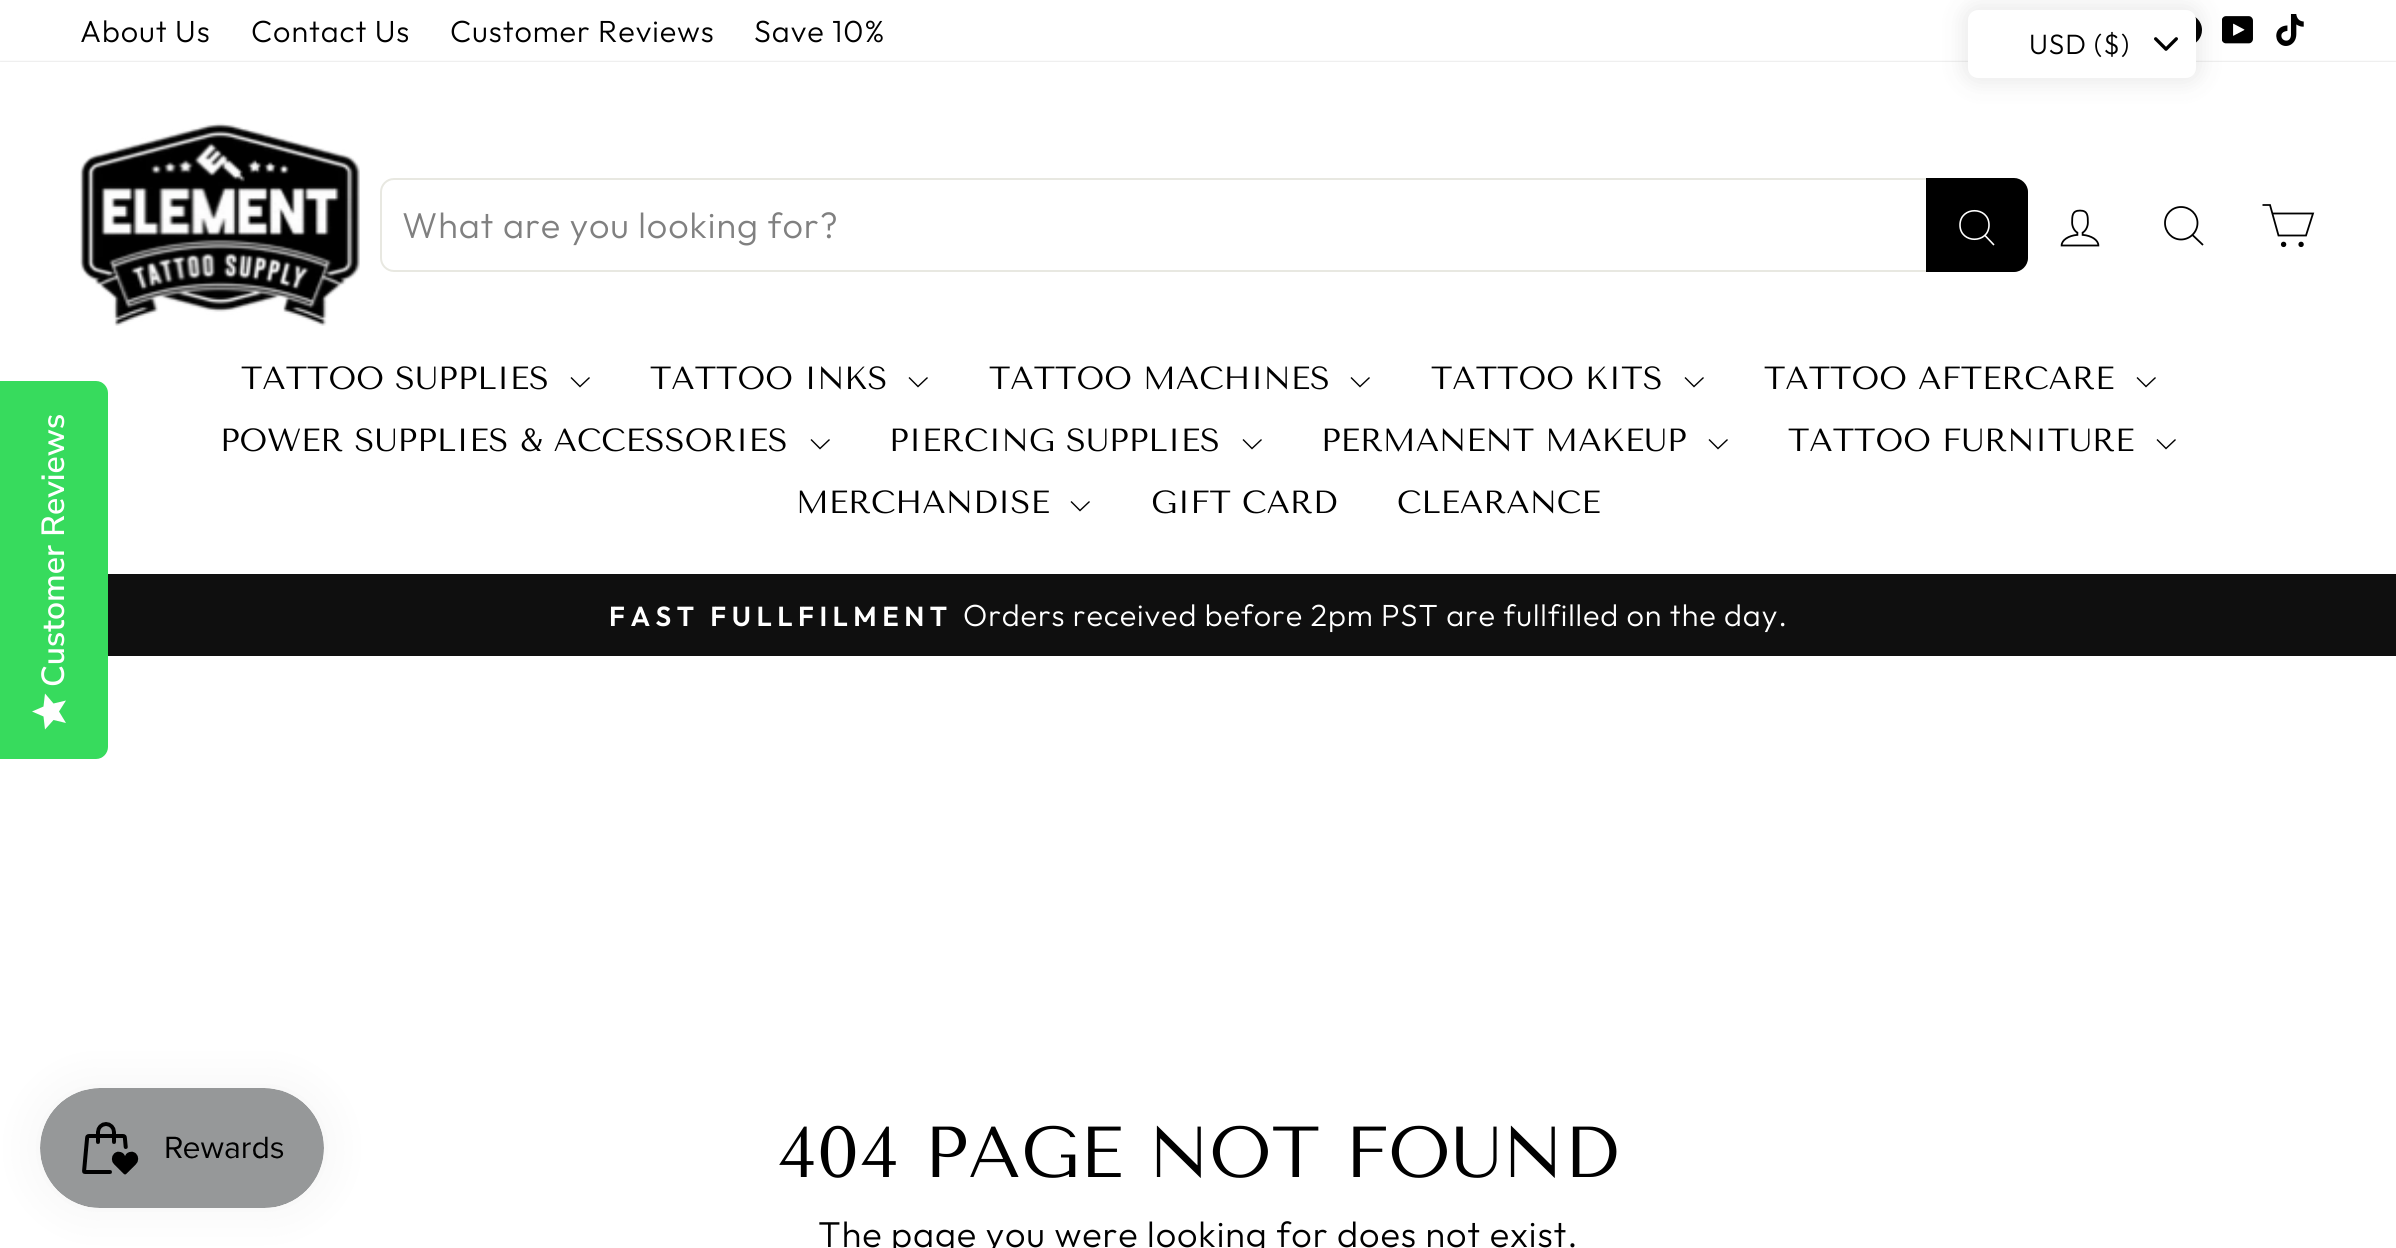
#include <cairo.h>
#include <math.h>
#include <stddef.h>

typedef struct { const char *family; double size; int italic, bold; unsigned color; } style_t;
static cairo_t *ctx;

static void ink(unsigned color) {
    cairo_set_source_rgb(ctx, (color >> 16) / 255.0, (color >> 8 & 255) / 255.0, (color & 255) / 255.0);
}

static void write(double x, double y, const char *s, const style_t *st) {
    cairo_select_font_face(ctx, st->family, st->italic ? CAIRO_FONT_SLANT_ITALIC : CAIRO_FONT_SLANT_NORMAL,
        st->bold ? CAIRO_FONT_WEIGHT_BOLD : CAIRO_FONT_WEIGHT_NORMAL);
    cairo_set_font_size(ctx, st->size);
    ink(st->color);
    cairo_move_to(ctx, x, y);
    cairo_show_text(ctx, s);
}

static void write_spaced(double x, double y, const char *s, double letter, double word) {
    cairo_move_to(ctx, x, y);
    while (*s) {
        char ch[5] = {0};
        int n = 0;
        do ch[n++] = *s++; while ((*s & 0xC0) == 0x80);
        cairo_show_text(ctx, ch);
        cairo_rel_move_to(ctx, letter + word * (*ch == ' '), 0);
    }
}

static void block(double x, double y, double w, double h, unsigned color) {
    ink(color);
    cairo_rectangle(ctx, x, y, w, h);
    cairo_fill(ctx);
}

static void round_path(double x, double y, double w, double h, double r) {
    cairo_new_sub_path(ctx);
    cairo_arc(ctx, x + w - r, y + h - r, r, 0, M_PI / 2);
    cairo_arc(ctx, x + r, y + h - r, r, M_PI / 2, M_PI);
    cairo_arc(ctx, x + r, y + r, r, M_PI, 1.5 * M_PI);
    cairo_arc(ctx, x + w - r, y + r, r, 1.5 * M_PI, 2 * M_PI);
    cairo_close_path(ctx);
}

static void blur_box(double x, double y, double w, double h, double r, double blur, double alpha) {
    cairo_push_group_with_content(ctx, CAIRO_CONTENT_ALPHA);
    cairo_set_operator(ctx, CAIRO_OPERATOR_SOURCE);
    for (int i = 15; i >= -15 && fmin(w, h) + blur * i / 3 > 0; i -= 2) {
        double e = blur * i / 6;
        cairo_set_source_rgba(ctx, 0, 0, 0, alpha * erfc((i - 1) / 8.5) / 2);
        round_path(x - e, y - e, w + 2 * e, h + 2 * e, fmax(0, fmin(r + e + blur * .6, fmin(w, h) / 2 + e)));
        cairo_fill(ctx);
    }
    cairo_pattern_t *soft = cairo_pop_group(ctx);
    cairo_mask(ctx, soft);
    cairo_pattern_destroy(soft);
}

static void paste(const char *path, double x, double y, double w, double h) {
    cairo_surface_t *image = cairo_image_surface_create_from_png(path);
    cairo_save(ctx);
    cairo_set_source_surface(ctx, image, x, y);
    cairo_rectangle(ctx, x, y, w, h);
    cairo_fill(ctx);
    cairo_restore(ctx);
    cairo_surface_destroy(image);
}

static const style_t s1 = {"Tenor Sans", 32, 0, 0, 0x000000};
static const style_t s2 = {"Tenor Sans", 72, 0, 0, 0x000000};
static const style_t s3 = {"Nunito Sans ExtraLight", 32, 0, 0, 0xffffff};

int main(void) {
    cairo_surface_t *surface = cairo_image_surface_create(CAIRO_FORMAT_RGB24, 2396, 1248);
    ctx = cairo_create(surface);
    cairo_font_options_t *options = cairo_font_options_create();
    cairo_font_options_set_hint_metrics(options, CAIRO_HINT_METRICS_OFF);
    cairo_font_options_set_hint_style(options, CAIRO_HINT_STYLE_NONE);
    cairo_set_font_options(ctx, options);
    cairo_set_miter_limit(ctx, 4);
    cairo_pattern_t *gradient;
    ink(0xffffff);
    cairo_paint(ctx);
    cairo_select_font_face(ctx, "Outfit Light", CAIRO_FONT_SLANT_NORMAL, CAIRO_FONT_WEIGHT_NORMAL);
    cairo_set_font_size(ctx, 30.6);
    ink(0x000000);
    write_spaced(80, 42, "About Us", 0.9, 0);
    write_spaced(251, 42, "Contact Us", 0.9, 0);
    write_spaced(450, 42, "Customer Reviews", 0.9, 0);
    write_spaced(754, 42, "Save 10%", 0.9, 0);
    paste("pic1.png", 2195, 16, 7, 27);
    paste("pic2.png", 2222, 16, 31, 28);
    paste("pic3.png", 2276, 14, 28, 32);
    block(108, 574, 2288, 82, 0x0f0f0f);
    cairo_save(ctx);
    cairo_set_fill_rule(ctx, CAIRO_FILL_RULE_EVEN_ODD);
    cairo_new_path(ctx);
    cairo_move_to(ctx, 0, 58);
    cairo_line_to(ctx, 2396, 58);
    cairo_line_to(ctx, 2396, 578);
    cairo_line_to(ctx, 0, 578);
    cairo_close_path(ctx);
    cairo_move_to(ctx, 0, 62);
    cairo_line_to(ctx, 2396, 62);
    cairo_line_to(ctx, 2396, 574);
    cairo_line_to(ctx, 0, 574);
    cairo_close_path(ctx);
    cairo_clip(ctx);
    ink(0x000000);
    blur_box(0, 62, 2396, 512, 0, 1, 0.2);
    cairo_restore(ctx);
    paste("pic4.png", 80, 123, 280, 203);
    round_path(381, 179, 1646, 92, 13);
    ink(0xe8e8e1);
    cairo_stroke(ctx);
    cairo_set_font_size(ctx, 36);
    ink(0x808080);
    write_spaced(402, 238, "What are you looking for?", 0.9, 0);
    ink(0x000000);
    cairo_new_path(ctx);
    cairo_move_to(ctx, 1926, 178);
    cairo_line_to(ctx, 2014, 178);
    cairo_curve_to(ctx, 2021.5, 178, 2028, 184.5, 2028, 192);
    cairo_line_to(ctx, 2028, 258);
    cairo_curve_to(ctx, 2028, 265.5, 2021.5, 272, 2014, 272);
    cairo_line_to(ctx, 1926, 272);
    cairo_close_path(ctx);
    cairo_fill(ctx);
    cairo_new_path(ctx);
    cairo_move_to(ctx, 1989, 225);
    cairo_curve_to(ctx, 1989, 244, 1960, 244, 1960, 225);
    cairo_curve_to(ctx, 1960, 206, 1989, 206, 1989, 225);
    cairo_close_path(ctx);
    cairo_move_to(ctx, 1994, 245);
    cairo_line_to(ctx, 1985, 235.5);
    ink(0xffffff);
    cairo_set_line_width(ctx, 1.6);
    cairo_stroke(ctx);
    paste("pic5.png", 2060, 209, 40, 38);
    cairo_new_path(ctx);
    cairo_move_to(ctx, 2197.5, 223);
    cairo_curve_to(ctx, 2197.5, 232, 2190, 239.5, 2181, 239.5);
    cairo_curve_to(ctx, 2172, 239.5, 2165, 232, 2165, 223);
    cairo_curve_to(ctx, 2165, 214, 2172, 207, 2181, 207);
    cairo_curve_to(ctx, 2190, 207, 2197.5, 214, 2197.5, 223);
    cairo_close_path(ctx);
    cairo_move_to(ctx, 2203, 245);
    cairo_line_to(ctx, 2192.5, 235);
    ink(0x000000);
    cairo_set_line_width(ctx, 1.8);
    cairo_stroke(ctx);
    cairo_new_path(ctx);
    cairo_move_to(ctx, 2272, 213.5);
    cairo_line_to(ctx, 2313, 213.5);
    cairo_line_to(ctx, 2306, 235.5);
    cairo_line_to(ctx, 2278.5, 235.5);
    cairo_line_to(ctx, 2270, 205);
    cairo_line_to(ctx, 2262.5, 205);
    cairo_stroke(ctx);
    cairo_arc(ctx, 2283.6, 244.4, 1.8, 0, 2 * M_PI);
    cairo_fill_preserve(ctx);
    cairo_stroke(ctx);
    cairo_arc(ctx, 2301.1, 244.4, 1.8, 0, 2 * M_PI);
    cairo_fill_preserve(ctx);
    cairo_stroke(ctx);
    write(241, 389, "TATTOO SUPPLIES", &s1);
    cairo_new_path(ctx);
    cairo_move_to(ctx, 571, 377.5);
    cairo_line_to(ctx, 580, 386.5);
    cairo_line_to(ctx, 589.5, 377.5);
    cairo_set_line_width(ctx, 1.4);
    cairo_stroke(ctx);
    write(650, 389, "TATTOO INKS", &s1);
    cairo_new_path(ctx);
    cairo_move_to(ctx, 909, 377.5);
    cairo_line_to(ctx, 918, 386.5);
    cairo_line_to(ctx, 927.5, 377.5);
    cairo_stroke(ctx);
    write(989, 389, "TATTOO MACHINES", &s1);
    cairo_new_path(ctx);
    cairo_move_to(ctx, 1351, 377.5);
    cairo_line_to(ctx, 1360, 386.5);
    cairo_line_to(ctx, 1369.5, 377.5);
    cairo_stroke(ctx);
    write(1431, 389, "TATTOO KITS", &s1);
    cairo_new_path(ctx);
    cairo_move_to(ctx, 1685, 377.5);
    cairo_line_to(ctx, 1694, 386.5);
    cairo_line_to(ctx, 1703.5, 377.5);
    cairo_stroke(ctx);
    write(1764, 389, "TATTOO AFTERCARE", &s1);
    cairo_new_path(ctx);
    cairo_move_to(ctx, 2137, 377.5);
    cairo_line_to(ctx, 2146, 386.5);
    cairo_line_to(ctx, 2155.5, 377.5);
    cairo_stroke(ctx);
    write(220, 451, "POWER SUPPLIES & ACCESSORIES", &s1);
    cairo_new_path(ctx);
    cairo_move_to(ctx, 811, 439.5);
    cairo_line_to(ctx, 820, 448.5);
    cairo_line_to(ctx, 829.5, 439.5);
    cairo_stroke(ctx);
    write(889, 451, "PIERCING SUPPLIES", &s1);
    cairo_new_path(ctx);
    cairo_move_to(ctx, 1243, 439.5);
    cairo_line_to(ctx, 1252, 448.5);
    cairo_line_to(ctx, 1261.5, 439.5);
    cairo_stroke(ctx);
    write(1321, 451, "PERMANENT MAKEUP", &s1);
    cairo_new_path(ctx);
    cairo_move_to(ctx, 1709, 439.5);
    cairo_line_to(ctx, 1718, 448.5);
    cairo_line_to(ctx, 1727.5, 439.5);
    cairo_stroke(ctx);
    write(1788, 451, "TATTOO FURNITURE", &s1);
    cairo_new_path(ctx);
    cairo_move_to(ctx, 2157, 439.5);
    cairo_line_to(ctx, 2166, 448.5);
    cairo_line_to(ctx, 2175.5, 439.5);
    cairo_stroke(ctx);
    write(796, 513, "MERCHANDISE", &s1);
    cairo_new_path(ctx);
    cairo_move_to(ctx, 1071, 501.5);
    cairo_line_to(ctx, 1080, 510.5);
    cairo_line_to(ctx, 1089.5, 501.5);
    cairo_stroke(ctx);
    write(1151, 513, "GIFT CARD", &s1);
    write(1397, 513, "CLEARANCE", &s1);
    cairo_select_font_face(ctx, "Outfit SemiBold", CAIRO_FONT_SLANT_NORMAL, CAIRO_FONT_WEIGHT_NORMAL);
    cairo_set_font_size(ctx, 27.5);
    ink(0xffffff);
    write_spaced(609, 626, "FAST FULLFILMENT", 5.5, 0);
    cairo_select_font_face(ctx, "Outfit Light", CAIRO_FONT_SLANT_NORMAL, CAIRO_FONT_WEIGHT_NORMAL);
    cairo_set_font_size(ctx, 30.6);
    write_spaced(963, 626, "Orders received before 2pm PST are fullfilled on the day.", 0.9, 0);
    write(777, 1177, "404 PAGE NOT FOUND", &s2);
    cairo_select_font_face(ctx, "Outfit Light", CAIRO_FONT_SLANT_NORMAL, CAIRO_FONT_WEIGHT_NORMAL);
    cairo_set_font_size(ctx, 36);
    write_spaced(818, 1247, "The page you were looking for does not exist.", 0.9, 0);
    ink(0x3c3c3c);
    blur_box(1960, 2, 244, 84, 18, 10, 0.09);
    ink(0xffffff);
    round_path(1968, 10, 228, 68, 10);
    cairo_fill(ctx);
    cairo_set_font_size(ctx, 28);
    ink(0x000000);
    write_spaced(2029, 54, "USD ($)", 0.9, 0);
    paste("pic6.png", 2154, 37, 24, 14);
    ink(0x37db5d);
    cairo_new_path(ctx);
    cairo_move_to(ctx, 0, 759);
    cairo_line_to(ctx, 0, 381);
    cairo_line_to(ctx, 96, 381);
    cairo_curve_to(ctx, 103, 381, 108, 387, 108, 393);
    cairo_line_to(ctx, 108, 747);
    cairo_curve_to(ctx, 108, 753, 103, 759, 96, 759);
    cairo_close_path(ctx);
    cairo_fill(ctx);
    cairo_save(ctx);
    cairo_translate(ctx, 64, 687);
    cairo_rotate(ctx, -90 * M_PI / 180);
    write(0, 0, "Customer Reviews", &s3);
    cairo_restore(ctx);
    gradient = cairo_pattern_create_linear(32, 730, 32, 694);
    cairo_pattern_add_color_stop_rgba(gradient, 1, 0.996, 0.996, 0.996, 1);
    cairo_pattern_add_color_stop_rgba(gradient, 1, 0.918, 0.918, 0.918, 1);
    cairo_set_source(ctx, gradient);
    cairo_pattern_destroy(gradient);
    cairo_new_path(ctx);
    cairo_move_to(ctx, 59, 711.5);
    cairo_line_to(ctx, 66, 700.5);
    cairo_line_to(ctx, 53.5, 703.5);
    cairo_line_to(ctx, 45, 693.5);
    cairo_line_to(ctx, 43.5, 706.5);
    cairo_line_to(ctx, 32, 711.5);
    cairo_line_to(ctx, 43.5, 716.5);
    cairo_line_to(ctx, 45, 729.5);
    cairo_line_to(ctx, 53.5, 720);
    cairo_line_to(ctx, 66, 723);
    cairo_close_path(ctx);
    cairo_fill(ctx);
    ink(0x000000);
    blur_box(40, 1088, 284, 120, 60, 25, 0.05);
    paste("pic7.png", 40, 1088, 284, 120);
    cairo_surface_write_to_png(surface, "screenshot.png");
    cairo_font_options_destroy(options);
    cairo_destroy(ctx);
    cairo_surface_destroy(surface);
    return 0;
}
